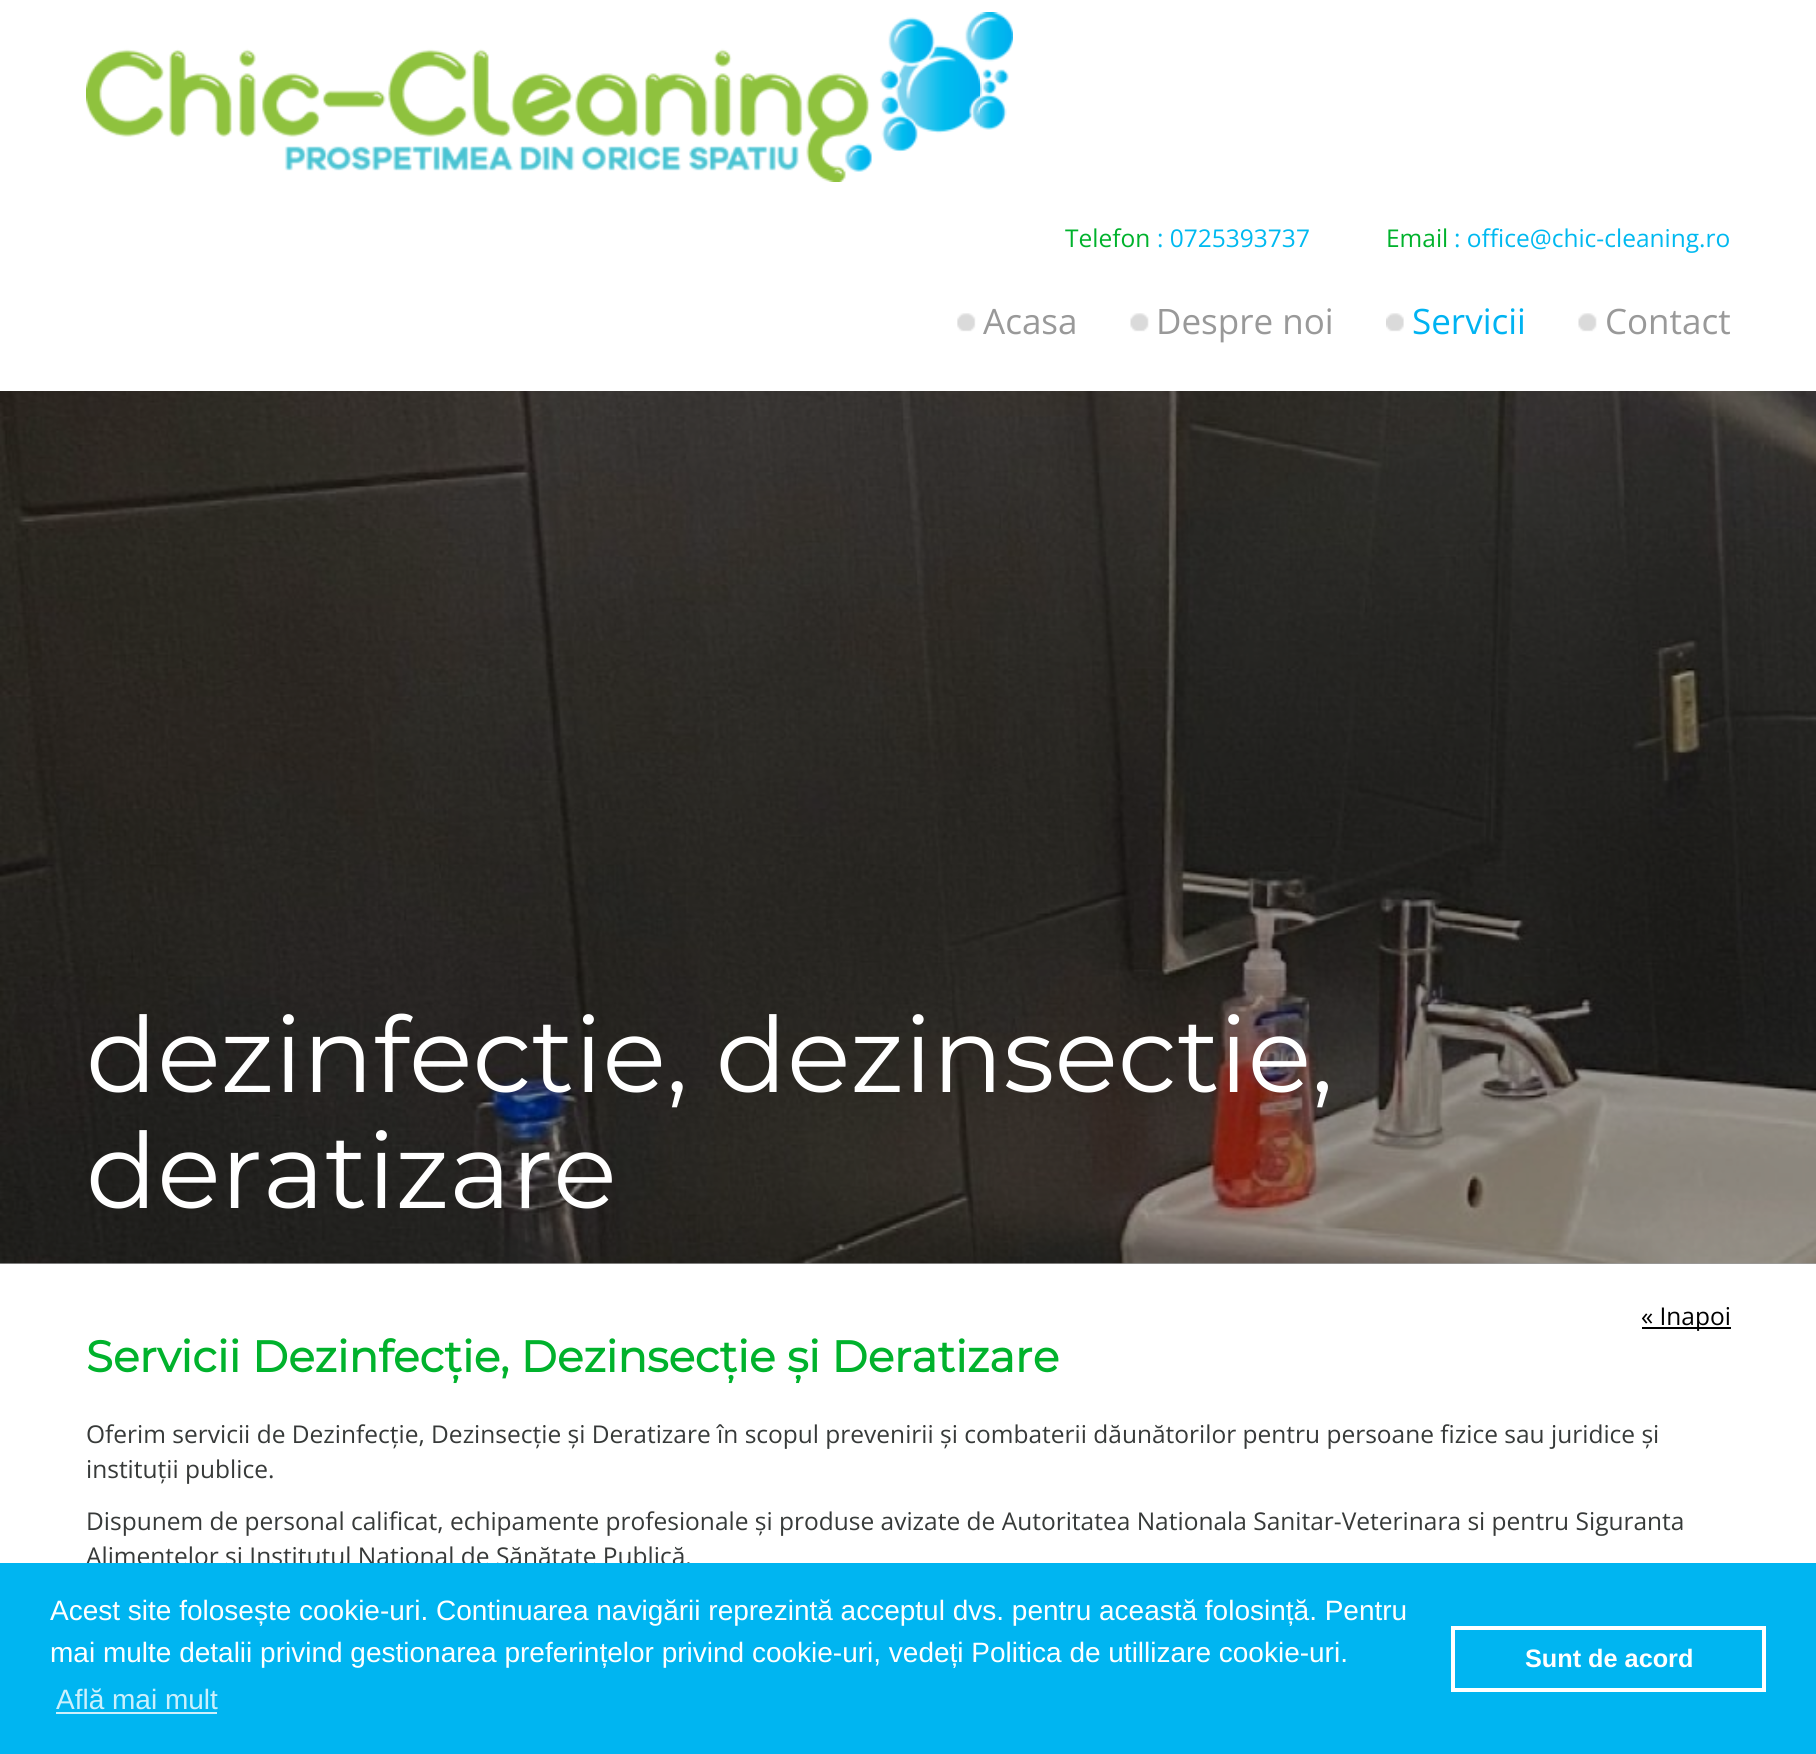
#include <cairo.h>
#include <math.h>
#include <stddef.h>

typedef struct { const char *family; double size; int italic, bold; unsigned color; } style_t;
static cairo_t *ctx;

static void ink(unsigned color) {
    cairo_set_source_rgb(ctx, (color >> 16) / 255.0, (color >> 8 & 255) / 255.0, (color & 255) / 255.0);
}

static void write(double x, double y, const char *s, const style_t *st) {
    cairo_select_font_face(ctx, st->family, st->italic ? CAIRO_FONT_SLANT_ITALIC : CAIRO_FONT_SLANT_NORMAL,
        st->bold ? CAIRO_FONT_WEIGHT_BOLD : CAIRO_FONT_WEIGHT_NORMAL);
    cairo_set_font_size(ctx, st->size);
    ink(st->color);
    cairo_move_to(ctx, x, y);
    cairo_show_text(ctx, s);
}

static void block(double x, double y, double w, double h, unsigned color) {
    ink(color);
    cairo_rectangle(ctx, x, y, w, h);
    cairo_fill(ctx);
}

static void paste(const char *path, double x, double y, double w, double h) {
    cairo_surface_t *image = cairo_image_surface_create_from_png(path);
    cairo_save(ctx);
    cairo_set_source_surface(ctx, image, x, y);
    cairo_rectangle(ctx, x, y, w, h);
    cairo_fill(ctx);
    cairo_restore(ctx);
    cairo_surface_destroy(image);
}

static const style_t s1 = {"Open Sans", 24.5, 0, 0, 0x00b22c};
static const style_t s2 = {"Open Sans", 24.5, 0, 0, 0x00b9f0};
static const style_t s3 = {"Open Sans", 35, 0, 0, 0x999999};
static const style_t s4 = {"Open Sans", 35, 0, 0, 0x00b3f2};
static const style_t s5 = {"Montserrat Thin", 105, 0, 0, 0xffffff};
static const style_t s6 = {"Open Sans", 24.5, 0, 0, 0x000000};
static const style_t s7 = {"Montserrat", 43.75, 0, 1, 0x00b22c};
static const style_t s8 = {"Open Sans", 24.5, 0, 0, 0x373a39};
static const style_t s9 = {"Liberation Sans", 28, 0, 0, 0xffffff};
static const style_t s10 = {"Liberation Sans", 28, 0, 0, 0xccf0fc};
static const style_t s11 = {"Liberation Sans", 25.25, 0, 1, 0xffffff};

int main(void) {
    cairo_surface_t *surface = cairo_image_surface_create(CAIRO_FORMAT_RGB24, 1816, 1754);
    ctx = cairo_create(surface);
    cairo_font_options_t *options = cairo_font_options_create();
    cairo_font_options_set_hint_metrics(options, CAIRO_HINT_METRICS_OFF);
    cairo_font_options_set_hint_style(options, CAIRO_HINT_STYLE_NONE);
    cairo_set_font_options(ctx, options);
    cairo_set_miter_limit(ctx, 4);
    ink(0xffffff);
    cairo_paint(ctx);
    block(0, 1263, 1816, 1, 0x9c9c9c);
    paste("pic1.png", 86, 12, 927, 170);
    write(1065, 247, "Telefon", &s1);
    write(1157, 247, ": 0725393737", &s2);
    write(1386, 247, "Email", &s1);
    write(1454, 247, ": office@chic-cleaning.ro", &s2);
    paste("pic2.png", 957, 313, 19, 19);
    write(983, 334, "Acasa", &s3);
    paste("pic3.png", 1130, 313, 19, 19);
    write(1156, 334, "Despre noi", &s3);
    paste("pic4.png", 1386, 313, 18, 19);
    write(1412, 334, "Servicii", &s4);
    paste("pic5.png", 1578, 313, 19, 19);
    write(1605, 334, "Contact", &s3);
    paste("pic6.png", 0, 391, 1816, 873);
    write(86, 1092, "dezinfectie, dezinsectie,", &s5);
    write(86, 1208, "deratizare", &s5);
    block(1642, 1327, 89, 2, 0x000000);
    write(1641, 1325, "« Inapoi", &s6);
    write(86, 1372, "Servicii Dezinfecție, Dezinsecție și Deratizare", &s7);
    write(86, 1443, "Oferim servicii de Dezinfecție, Dezinsecție și Deratizare în scopul prevenirii și combaterii dăunătorilor pentru persoane fizice sau juridice și", &s8);
    write(86, 1478, "instituții publice.", &s8);
    write(86, 1530, "Dispunem de personal calificat, echipamente profesionale și produse avizate de Autoritatea Nationala Sanitar-Veterinara si pentru Siguranta", &s8);
    write(86, 1565, "Alimentelor și Institutul Național de Sănătate Publică.", &s8);
    block(0, 1563, 1816, 191, 0x00b5f1);
    write(50, 1620, "Acest site folosește cookie-uri. Continuarea navigării reprezintă acceptul dvs. pentru această folosință. Pentru", &s9);
    write(50, 1662, "mai multe detalii privind gestionarea preferințelor privind cookie-uri, vedeți Politica de utillizare cookie-uri.", &s9);
    write(56, 1709, "Află mai mult", &s10);
    block(56, 1712, 161, 2, 0xccf0fc);
    cairo_rectangle(ctx, 1453, 1628, 311, 62);
    ink(0xffffff);
    cairo_set_line_width(ctx, 4);
    cairo_stroke(ctx);
    write(1525, 1667, "Sunt de acord", &s11);
    cairo_surface_write_to_png(surface, "screenshot.png");
    cairo_font_options_destroy(options);
    cairo_destroy(ctx);
    cairo_surface_destroy(surface);
    return 0;
}
